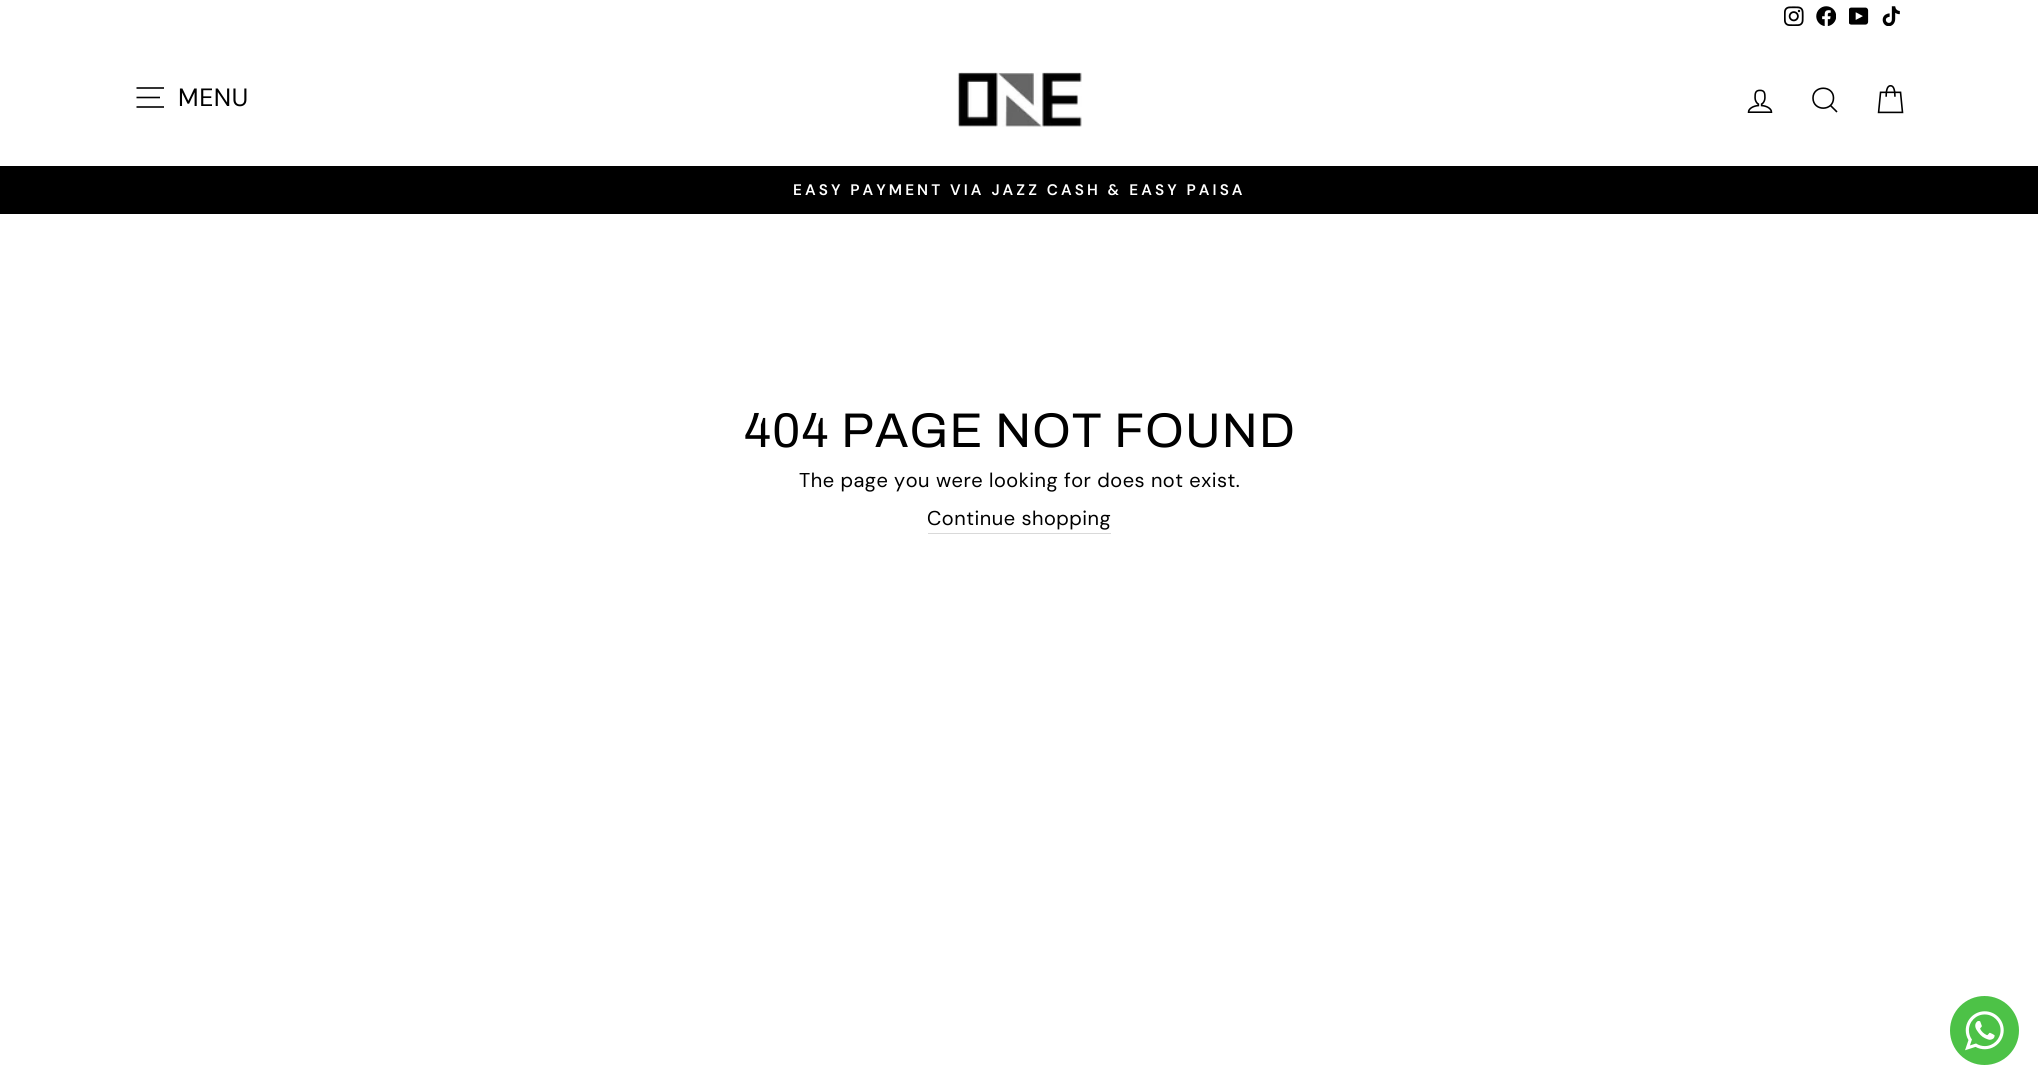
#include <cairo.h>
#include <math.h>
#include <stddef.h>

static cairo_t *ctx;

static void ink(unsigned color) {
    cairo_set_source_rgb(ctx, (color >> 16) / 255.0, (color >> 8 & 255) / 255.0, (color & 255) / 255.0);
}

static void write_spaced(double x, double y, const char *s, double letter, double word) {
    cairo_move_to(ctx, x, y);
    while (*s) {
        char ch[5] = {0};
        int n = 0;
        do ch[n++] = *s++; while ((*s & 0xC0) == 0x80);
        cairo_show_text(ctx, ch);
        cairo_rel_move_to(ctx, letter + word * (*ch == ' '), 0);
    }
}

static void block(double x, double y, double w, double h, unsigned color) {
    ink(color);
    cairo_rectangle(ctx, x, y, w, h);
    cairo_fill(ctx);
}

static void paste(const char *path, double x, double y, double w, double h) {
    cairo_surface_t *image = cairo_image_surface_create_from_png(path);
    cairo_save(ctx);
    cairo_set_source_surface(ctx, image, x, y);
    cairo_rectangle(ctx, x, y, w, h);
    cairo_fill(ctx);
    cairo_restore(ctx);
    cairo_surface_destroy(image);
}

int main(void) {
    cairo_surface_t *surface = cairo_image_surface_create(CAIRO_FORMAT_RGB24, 2038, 1082);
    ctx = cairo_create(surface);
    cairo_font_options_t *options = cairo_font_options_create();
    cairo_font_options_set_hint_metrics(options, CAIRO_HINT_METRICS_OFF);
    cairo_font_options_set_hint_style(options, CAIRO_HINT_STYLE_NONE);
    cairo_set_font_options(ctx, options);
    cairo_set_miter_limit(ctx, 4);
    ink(0xffffff);
    cairo_paint(ctx);
    paste("pic1.png", 1784, 6, 20, 20);
    paste("pic2.png", 1816, 6, 20, 20);
    paste("pic3.png", 1849, 7, 20, 18);
    paste("pic4.png", 1882, 6, 18, 20);
    cairo_new_path(ctx);
    cairo_move_to(ctx, 136.5, 88);
    cairo_line_to(ctx, 164, 88);
    cairo_move_to(ctx, 136.5, 97.5);
    cairo_line_to(ctx, 160, 97.5);
    cairo_move_to(ctx, 136.5, 107);
    cairo_line_to(ctx, 164, 107);
    ink(0x000000);
    cairo_set_line_width(ctx, 1.6);
    cairo_stroke(ctx);
    cairo_select_font_face(ctx, "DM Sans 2", CAIRO_FONT_SLANT_NORMAL, CAIRO_FONT_WEIGHT_NORMAL);
    cairo_set_font_size(ctx, 25);
    write_spaced(178, 106, "MENU", 0.5, 0);
    paste("pic5.png", 957, 72, 125, 55);
    paste("pic6.png", 1747, 89, 26, 24);
    cairo_new_path(ctx);
    cairo_move_to(ctx, 1833.5, 98);
    cairo_curve_to(ctx, 1833.5, 111.5, 1813, 111.5, 1813, 98);
    cairo_curve_to(ctx, 1813, 85, 1833.5, 85, 1833.5, 98);
    cairo_close_path(ctx);
    cairo_move_to(ctx, 1837, 112);
    cairo_line_to(ctx, 1830.5, 105.5);
    cairo_stroke(ctx);
    paste("pic7.png", 1877, 85, 27, 29);
    block(0, 166, 2038, 48, 0x000000);
    cairo_select_font_face(ctx, "DM Sans SemiBold", CAIRO_FONT_SLANT_NORMAL, CAIRO_FONT_WEIGHT_NORMAL);
    cairo_set_font_size(ctx, 15.3);
    ink(0xffffff);
    write_spaced(793, 195, "EASY PAYMENT VIA JAZZ CASH & EASY PAISA", 3.05, 0);
    cairo_select_font_face(ctx, "Archivo", CAIRO_FONT_SLANT_NORMAL, CAIRO_FONT_WEIGHT_NORMAL);
    cairo_set_font_size(ctx, 48.75);
    ink(0x000000);
    write_spaced(744, 447, "404 PAGE NOT FOUND", 1.25, 0);
    cairo_select_font_face(ctx, "DM Sans", CAIRO_FONT_SLANT_NORMAL, CAIRO_FONT_WEIGHT_NORMAL);
    cairo_set_font_size(ctx, 20);
    write_spaced(799, 487, "The page you were looking for does not exist.", 0.5, 0);
    block(928, 533, 183, 1, 0xd9d9d9);
    ink(0x000000);
    write_spaced(927, 525, "Continue shopping", 0.5, 0);
    ink(0x4dc247);
    cairo_new_path(ctx);
    cairo_arc(ctx, 1984.5, 1030.5, 34.5, 0, 2 * M_PI);
    cairo_fill(ctx);
    paste("pic8.png", 1965, 1011, 39, 40);
    cairo_surface_write_to_png(surface, "screenshot.png");
    cairo_font_options_destroy(options);
    cairo_destroy(ctx);
    cairo_surface_destroy(surface);
    return 0;
}
